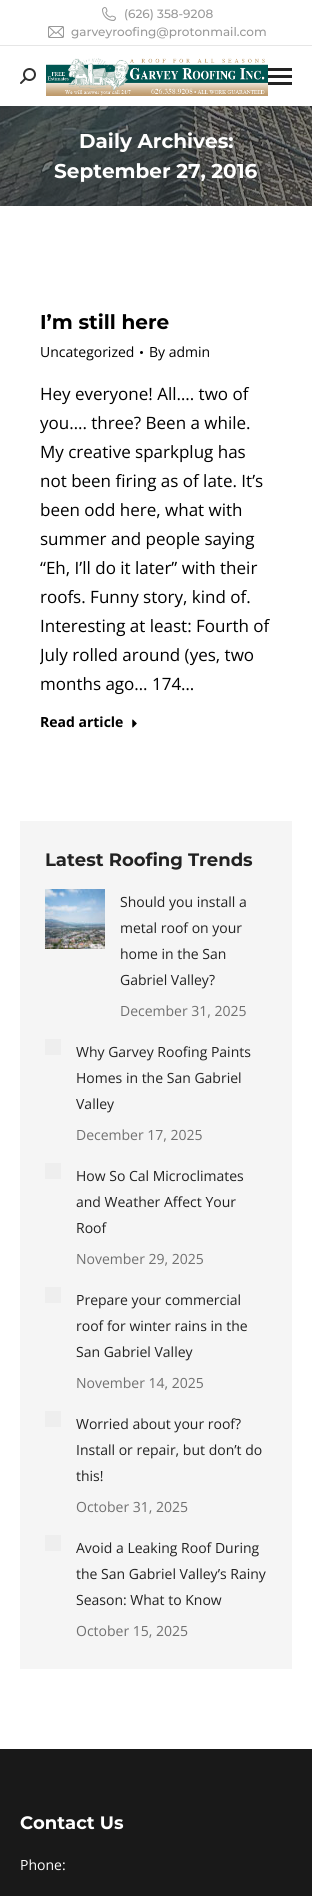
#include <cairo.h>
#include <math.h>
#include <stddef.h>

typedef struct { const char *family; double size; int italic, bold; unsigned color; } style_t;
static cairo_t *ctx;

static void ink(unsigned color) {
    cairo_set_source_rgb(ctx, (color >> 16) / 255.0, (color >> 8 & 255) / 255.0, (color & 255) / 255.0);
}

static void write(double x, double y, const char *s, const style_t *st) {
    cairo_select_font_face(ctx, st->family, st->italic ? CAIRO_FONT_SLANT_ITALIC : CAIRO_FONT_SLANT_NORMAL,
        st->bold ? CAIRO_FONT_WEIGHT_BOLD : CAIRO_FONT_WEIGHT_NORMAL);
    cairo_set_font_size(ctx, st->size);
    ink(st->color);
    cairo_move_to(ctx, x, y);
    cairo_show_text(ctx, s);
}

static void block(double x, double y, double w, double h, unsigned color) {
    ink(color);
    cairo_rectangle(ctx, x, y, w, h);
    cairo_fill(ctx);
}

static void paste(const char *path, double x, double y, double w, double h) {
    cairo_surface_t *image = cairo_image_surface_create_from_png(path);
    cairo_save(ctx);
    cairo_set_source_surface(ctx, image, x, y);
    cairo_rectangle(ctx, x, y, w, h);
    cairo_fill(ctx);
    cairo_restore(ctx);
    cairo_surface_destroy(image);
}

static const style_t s1 = {"Montserrat Medium", 12, 0, 0, 0x999999};
static const style_t s2 = {"Montserrat", 20, 0, 1, 0xffffff};
static const style_t s3 = {"Montserrat", 20, 0, 1, 0x000000};
static const style_t s4 = {"Open Sans", 14, 0, 0, 0x000000};
static const style_t s5 = {"Open Sans", 17, 0, 0, 0x000000};
static const style_t s6 = {"Open Sans", 14, 0, 1, 0x000000};
static const style_t s7 = {"Montserrat", 18, 0, 1, 0x222222};
static const style_t s8 = {"Open Sans", 14, 0, 0, 0x222222};
static const style_t s9 = {"Open Sans", 14, 0, 0, 0x707070};
static const style_t s10 = {"Montserrat", 18, 0, 1, 0xffffff};
static const style_t s11 = {"Open Sans", 14, 0, 0, 0xffffff};

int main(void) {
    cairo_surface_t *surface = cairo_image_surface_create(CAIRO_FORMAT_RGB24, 312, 1896);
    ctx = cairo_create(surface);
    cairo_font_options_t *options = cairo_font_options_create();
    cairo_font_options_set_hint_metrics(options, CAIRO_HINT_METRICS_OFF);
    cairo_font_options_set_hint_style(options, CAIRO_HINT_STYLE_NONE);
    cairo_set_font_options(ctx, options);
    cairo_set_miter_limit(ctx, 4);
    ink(0xffffff);
    cairo_paint(ctx);
    paste("pic1.png", 102, 7, 14, 14);
    write(124, 18, "(626) 358-9208", &s1);
    paste("pic2.png", 48, 26, 16, 12);
    write(71, 36, "garveyroofing@protonmail.com", &s1);
    block(0, 45, 312, 1, 0xe6e6e6);
    paste("pic3.png", 20, 68, 16, 16);
    paste("pic4.png", 46, 58, 222, 38);
    block(268, 68, 24, 3, 0x222222);
    block(268, 75, 24, 3, 0x222222);
    block(268, 82, 24, 3, 0x222222);
    paste("pic5.png", 0, 106, 312, 100);
    write(79, 148, "Daily Archives:", &s2);
    write(54, 178, "September 27, 2016", &s2);
    write(40, 329, "I’m still here", &s3);
    write(40, 357, "Uncategorized", &s4);
    cairo_new_path(ctx);
    cairo_arc(ctx, 141.5, 352.5, 1.5, 0, 2 * M_PI);
    cairo_fill(ctx);
    write(149, 357, "By admin", &s4);
    write(40, 400, "Hey everyone! All…. two of", &s5);
    write(40, 429, "you…. three? Been a while.", &s5);
    write(40, 458, "My creative sparkplug has", &s5);
    write(40, 487, "not been firing as of late. It’s", &s5);
    write(40, 516, "been odd here, what with", &s5);
    write(40, 545, "summer and people saying", &s5);
    write(40, 574, "“Eh, I’ll do it later” with their", &s5);
    write(40, 603, "roofs. Funny story, kind of.", &s5);
    write(40, 632, "Interesting at least: Fourth of", &s5);
    cairo_save(ctx);
    cairo_rectangle(ctx, 40, 379, 232, 329);
    cairo_clip(ctx);
    write(40, 661, "July rolled around (yes, two", &s5);
    cairo_restore(ctx);
    write(40, 690, "months ago… 174…", &s5);
    write(40, 727, "Read article", &s6);
    paste("pic6.png", 132, 719, 5, 9);
    block(20, 821, 272, 848, 0xf5f5f5);
    write(45, 866, "Latest Roofing Trends", &s7);
    paste("pic7.png", 45, 889, 60, 60);
    write(120, 907, "Should you install a", &s8);
    write(120, 933, "metal roof on your", &s8);
    write(120, 959, "home in the San", &s8);
    write(120, 985, "Gabriel Valley?", &s8);
    write(120, 1016, "December 31, 2025", &s9);
    block(45, 1039, 16, 16, 0xeeeeee);
    write(76, 1057, "Why Garvey Roofing Paints", &s8);
    write(76, 1083, "Homes in the San Gabriel", &s8);
    write(76, 1109, "Valley", &s8);
    write(76, 1140, "December 17, 2025", &s9);
    block(45, 1163, 16, 16, 0xeeeeee);
    write(76, 1181, "How So Cal Microclimates", &s8);
    write(76, 1207, "and Weather Affect Your", &s8);
    write(76, 1233, "Roof", &s8);
    write(76, 1264, "November 29, 2025", &s9);
    block(45, 1287, 16, 16, 0xeeeeee);
    write(76, 1305, "Prepare your commercial", &s8);
    write(76, 1331, "roof for winter rains in the", &s8);
    write(76, 1357, "San Gabriel Valley", &s8);
    write(76, 1388, "November 14, 2025", &s9);
    block(45, 1411, 16, 16, 0xeeeeee);
    write(76, 1429, "Worried about your roof?", &s8);
    write(76, 1455, "Install or repair, but don’t do", &s8);
    write(76, 1481, "this!", &s8);
    write(76, 1512, "October 31, 2025", &s9);
    block(45, 1535, 16, 16, 0xeeeeee);
    write(76, 1553, "Avoid a Leaking Roof During", &s8);
    write(76, 1579, "the San Gabriel Valley’s Rainy", &s8);
    write(76, 1605, "Season: What to Know", &s8);
    write(76, 1636, "October 15, 2025", &s9);
    block(0, 1749, 312, 147, 0x191919);
    write(20, 1829, "Contact Us", &s10);
    write(20, 1870, "Phone:", &s11);
    cairo_surface_write_to_png(surface, "screenshot.png");
    cairo_font_options_destroy(options);
    cairo_destroy(ctx);
    cairo_surface_destroy(surface);
    return 0;
}
